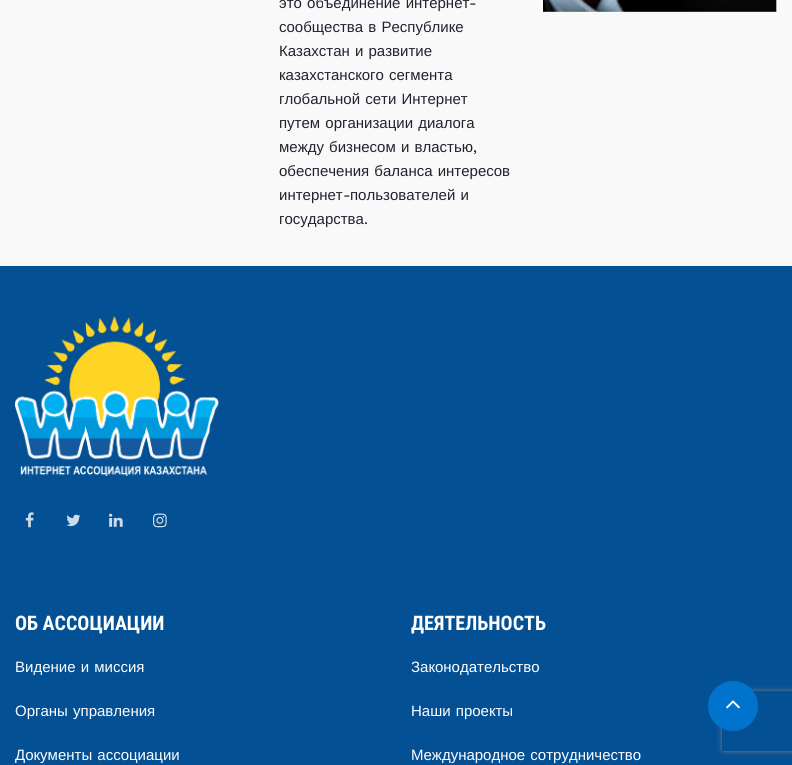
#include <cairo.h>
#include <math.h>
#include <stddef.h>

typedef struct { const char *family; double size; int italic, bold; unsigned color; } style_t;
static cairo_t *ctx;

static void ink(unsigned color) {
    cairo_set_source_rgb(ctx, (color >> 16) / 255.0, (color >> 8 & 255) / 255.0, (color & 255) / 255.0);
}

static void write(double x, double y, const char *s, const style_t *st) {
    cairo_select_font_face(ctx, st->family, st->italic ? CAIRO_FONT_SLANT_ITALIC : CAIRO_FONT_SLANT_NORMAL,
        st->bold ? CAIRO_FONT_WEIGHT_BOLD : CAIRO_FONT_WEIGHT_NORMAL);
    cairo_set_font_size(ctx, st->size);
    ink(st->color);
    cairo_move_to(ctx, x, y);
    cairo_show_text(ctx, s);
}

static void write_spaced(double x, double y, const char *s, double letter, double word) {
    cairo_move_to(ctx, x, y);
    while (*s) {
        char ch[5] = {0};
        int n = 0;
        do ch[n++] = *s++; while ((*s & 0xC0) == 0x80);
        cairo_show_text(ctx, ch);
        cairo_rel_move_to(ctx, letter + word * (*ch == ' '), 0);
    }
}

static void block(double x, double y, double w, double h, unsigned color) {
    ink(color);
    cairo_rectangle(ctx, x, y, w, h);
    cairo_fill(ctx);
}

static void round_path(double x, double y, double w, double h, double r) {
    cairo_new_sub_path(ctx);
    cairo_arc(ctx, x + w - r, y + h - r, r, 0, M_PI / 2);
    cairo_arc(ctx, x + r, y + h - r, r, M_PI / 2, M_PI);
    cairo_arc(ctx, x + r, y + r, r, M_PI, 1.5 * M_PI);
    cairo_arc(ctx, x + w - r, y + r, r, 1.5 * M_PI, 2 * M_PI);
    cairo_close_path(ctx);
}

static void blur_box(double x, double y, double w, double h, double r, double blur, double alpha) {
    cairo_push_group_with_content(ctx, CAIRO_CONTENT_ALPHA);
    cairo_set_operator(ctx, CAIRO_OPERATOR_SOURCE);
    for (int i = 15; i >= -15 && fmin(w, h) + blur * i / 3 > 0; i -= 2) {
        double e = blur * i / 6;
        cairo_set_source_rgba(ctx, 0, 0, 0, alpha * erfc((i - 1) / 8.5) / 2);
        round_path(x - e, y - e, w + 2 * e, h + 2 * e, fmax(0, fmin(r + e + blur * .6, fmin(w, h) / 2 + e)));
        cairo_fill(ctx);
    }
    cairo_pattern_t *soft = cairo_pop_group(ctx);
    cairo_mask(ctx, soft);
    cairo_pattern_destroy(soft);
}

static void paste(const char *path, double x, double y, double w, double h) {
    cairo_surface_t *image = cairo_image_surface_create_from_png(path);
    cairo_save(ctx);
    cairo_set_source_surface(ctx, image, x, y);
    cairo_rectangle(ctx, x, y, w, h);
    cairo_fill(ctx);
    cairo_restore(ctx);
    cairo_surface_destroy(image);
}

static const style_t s1 = {"Work Sans", 15, 0, 0, 0x212130};
static const style_t s2 = {"Liberation Sans", 15, 0, 0, 0x212130};
static const style_t s3 = {"Roboto Condensed", 20, 0, 1, 0xffffff};
static const style_t s4 = {"Liberation Sans", 15, 0, 0, 0xffffff};

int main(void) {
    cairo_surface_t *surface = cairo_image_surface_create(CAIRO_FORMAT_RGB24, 792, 765);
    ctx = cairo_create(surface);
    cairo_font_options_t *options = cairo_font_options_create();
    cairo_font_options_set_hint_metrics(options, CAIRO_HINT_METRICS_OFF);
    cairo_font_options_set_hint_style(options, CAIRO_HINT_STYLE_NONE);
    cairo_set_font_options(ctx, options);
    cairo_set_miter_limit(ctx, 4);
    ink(0x045094);
    cairo_paint(ctx);
    block(0, 0, 792, 266, 0xf9f9f9);
    cairo_select_font_face(ctx, "Liberation Sans", CAIRO_FONT_SLANT_NORMAL, CAIRO_FONT_WEIGHT_NORMAL);
    cairo_set_font_size(ctx, 15);
    ink(0x212130);
    write_spaced(279, 8, "это объединение интернет", 0, 1);
    write(469, 8, "-", &s1);
    cairo_select_font_face(ctx, "Liberation Sans", CAIRO_FONT_SLANT_NORMAL, CAIRO_FONT_WEIGHT_NORMAL);
    write_spaced(279, 32, "сообщества в Республике", 0, 1);
    write_spaced(279, 56, "Казахстан и развитие", 0, 1);
    write_spaced(279, 80, "казахстанского сегмента", 0, 1);
    write_spaced(279, 104, "глобальной сети Интернет", 0, 1);
    write_spaced(279, 128, "путем организации диалога", 0, 1);
    write_spaced(279, 152, "между бизнесом и властью", 0, 1);
    write(473, 152, ",", &s1);
    cairo_select_font_face(ctx, "Liberation Sans", CAIRO_FONT_SLANT_NORMAL, CAIRO_FONT_WEIGHT_NORMAL);
    write_spaced(279, 176, "обеспечения баланса интересов", 0, 1);
    write(279, 200, "интернет", &s2);
    write(343, 200, "-", &s1);
    cairo_select_font_face(ctx, "Liberation Sans", CAIRO_FONT_SLANT_NORMAL, CAIRO_FONT_WEIGHT_NORMAL);
    write_spaced(350, 200, "пользователей и", 0, 1);
    write(279, 224, "государства", &s2);
    write(364, 224, ".", &s1);
    paste("pic1.png", 543, 0, 234, 12);
    paste("pic2.png", 15, 316, 204, 160);
    paste("pic3.png", 25, 512, 9, 16);
    paste("pic4.png", 66, 514, 15, 13);
    paste("pic5.png", 109, 513, 14, 14);
    paste("pic6.png", 153, 513, 14, 15);
    write(15, 630, "ОБ АССОЦИАЦИИ", &s3);
    cairo_select_font_face(ctx, "Liberation Sans", CAIRO_FONT_SLANT_NORMAL, CAIRO_FONT_WEIGHT_NORMAL);
    cairo_set_font_size(ctx, 15);
    write_spaced(15, 672, "Видение и миссия", 0, 1);
    write_spaced(15, 716, "Органы управления", 0, 1);
    write_spaced(15, 760, "Документы ассоциации", 0, 1);
    write(411, 630, "ДЕЯТЕЛЬНОСТЬ", &s3);
    write(411, 672, "Законодательство", &s4);
    write_spaced(411, 716, "Наши проекты", 0, 1);
    write_spaced(411, 760, "Международное сотрудничество", 0, 1);
    cairo_save(ctx);
    cairo_set_fill_rule(ctx, CAIRO_FILL_RULE_EVEN_ODD);
    cairo_new_path(ctx);
    cairo_move_to(ctx, 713, 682);
    cairo_line_to(ctx, 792, 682);
    cairo_line_to(ctx, 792, 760);
    cairo_line_to(ctx, 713, 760);
    cairo_close_path(ctx);
    cairo_move_to(ctx, 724, 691);
    cairo_line_to(ctx, 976, 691);
    cairo_curve_to(ctx, 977, 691, 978, 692, 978, 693);
    cairo_line_to(ctx, 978, 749);
    cairo_curve_to(ctx, 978, 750, 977, 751, 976, 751);
    cairo_line_to(ctx, 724, 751);
    cairo_curve_to(ctx, 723, 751, 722, 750, 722, 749);
    cairo_line_to(ctx, 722, 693);
    cairo_curve_to(ctx, 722, 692, 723, 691, 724, 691);
    cairo_close_path(ctx);
    cairo_clip(ctx);
    ink(0x808080);
    blur_box(722, 691, 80, 60, 2, 2.5, 1);
    cairo_restore(ctx);
    ink(0x0073cc);
    cairo_arc(ctx, 733, 706, 25, 0, 2 * M_PI);
    cairo_fill(ctx);
    paste("pic7.png", 726, 700, 14, 9);
    cairo_surface_write_to_png(surface, "screenshot.png");
    cairo_font_options_destroy(options);
    cairo_destroy(ctx);
    cairo_surface_destroy(surface);
    return 0;
}
